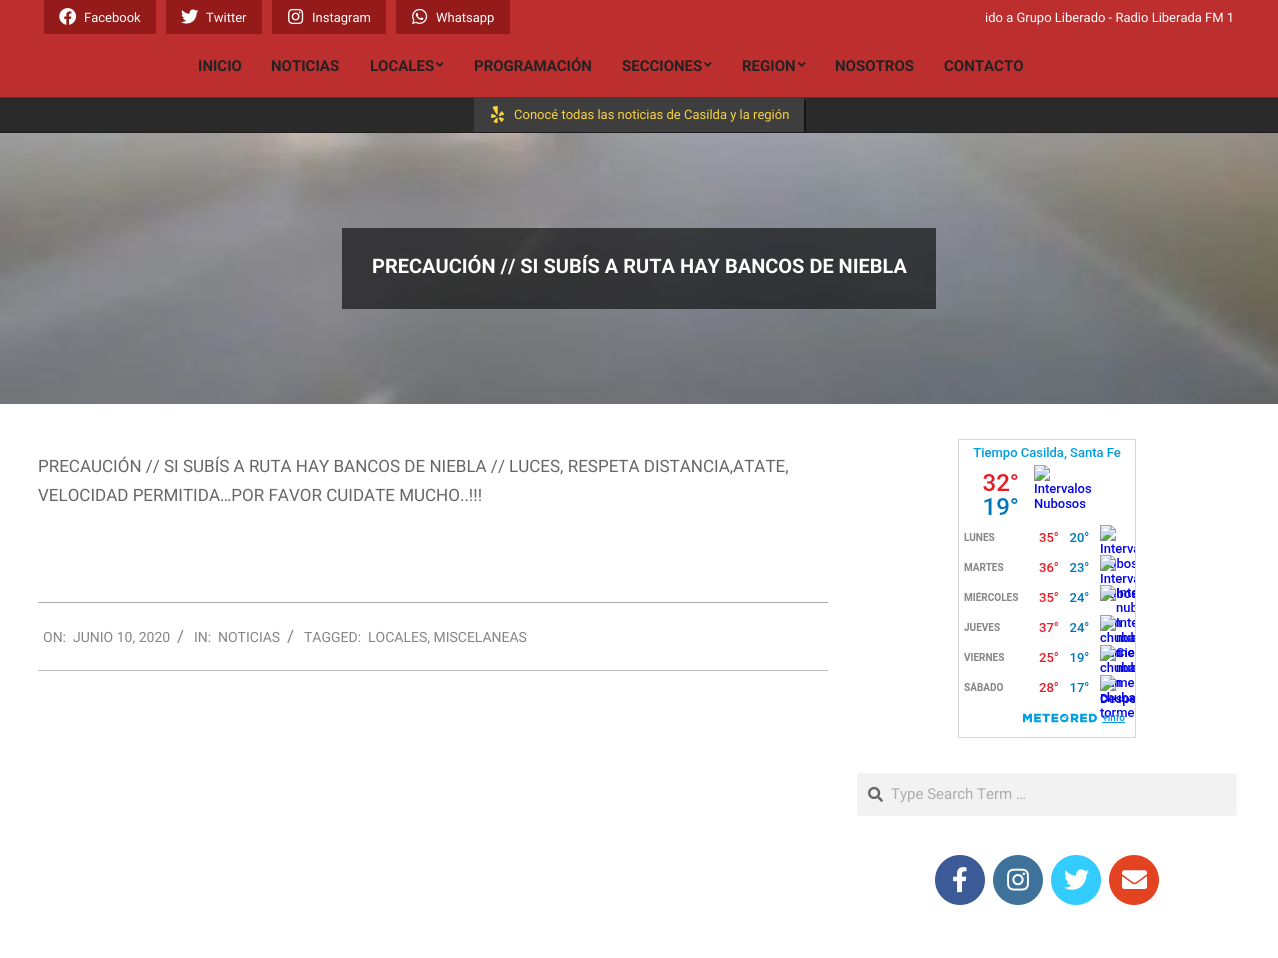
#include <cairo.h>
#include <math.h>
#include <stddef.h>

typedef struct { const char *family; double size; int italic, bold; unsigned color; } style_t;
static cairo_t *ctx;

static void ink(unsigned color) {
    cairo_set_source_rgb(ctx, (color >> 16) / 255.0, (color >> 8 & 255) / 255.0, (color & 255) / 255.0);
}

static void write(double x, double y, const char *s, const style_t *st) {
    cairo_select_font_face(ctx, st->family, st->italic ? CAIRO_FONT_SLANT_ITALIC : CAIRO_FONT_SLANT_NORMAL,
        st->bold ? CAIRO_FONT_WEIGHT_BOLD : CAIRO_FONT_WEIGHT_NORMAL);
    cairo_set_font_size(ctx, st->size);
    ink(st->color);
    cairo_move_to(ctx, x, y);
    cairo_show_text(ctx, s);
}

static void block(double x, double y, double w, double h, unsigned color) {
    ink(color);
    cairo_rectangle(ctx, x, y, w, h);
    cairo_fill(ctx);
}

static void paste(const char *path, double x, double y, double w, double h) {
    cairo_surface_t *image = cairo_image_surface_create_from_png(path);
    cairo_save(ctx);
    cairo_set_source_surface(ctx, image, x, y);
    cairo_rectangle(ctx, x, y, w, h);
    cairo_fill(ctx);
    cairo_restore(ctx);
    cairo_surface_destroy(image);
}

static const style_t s1 = {"Roboto", 13, 0, 0, 0xffffff};
static const style_t s2 = {"Roboto", 15, 0, 1, 0x222222};
static const style_t s3 = {"Roboto", 13, 0, 0, 0xf7d341};
static const style_t s4 = {"Roboto", 20, 0, 1, 0xffffff};
static const style_t s5 = {"Roboto", 17, 0, 0, 0x666666};
static const style_t s6 = {"Roboto", 14, 0, 0, 0x858585};
static const style_t s7 = {"Roboto", 17, 0, 0, 0x858585};
static const style_t s8 = {"Roboto", 15, 0, 0, 0xacacac};

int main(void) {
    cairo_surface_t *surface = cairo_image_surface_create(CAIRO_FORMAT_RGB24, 1278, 958);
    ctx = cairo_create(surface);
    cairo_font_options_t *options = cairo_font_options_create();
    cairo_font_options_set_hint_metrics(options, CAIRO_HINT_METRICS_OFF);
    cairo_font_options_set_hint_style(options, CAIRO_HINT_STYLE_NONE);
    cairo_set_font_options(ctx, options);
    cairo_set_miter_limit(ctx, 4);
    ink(0xbd2e2e);
    cairo_paint(ctx);
    block(44, 0, 112, 34, 0x951a1a);
    paste("pic1.png", 59, 8, 18, 17);
    write(84, 22, "Facebook", &s1);
    block(166, 0, 96, 34, 0x951a1a);
    paste("pic2.png", 181, 9, 18, 15);
    write(206, 22, "Twitter", &s1);
    block(272, 0, 114, 34, 0x951a1a);
    paste("pic3.png", 288, 8, 16, 17);
    write(312, 22, "Instagram", &s1);
    block(396, 0, 114, 34, 0x951a1a);
    paste("pic4.png", 412, 8, 16, 16);
    write(436, 22, "Whatsapp", &s1);
    write(985, 22, "ido a Grupo Liberado - Radio Liberada FM 1", &s1);
    block(0, 97, 1278, 1, 0x7f1f1f);
    write(198, 71, "INICIO", &s2);
    write(271, 71, "NOTICIAS", &s2);
    write(370, 71, "LOCALES", &s2);
    paste("pic5.png", 436, 62, 8, 5);
    write(474, 71, "PROGRAMACIÓN", &s2);
    write(622, 71, "SECCIONES", &s2);
    paste("pic5.png", 704, 62, 8, 5);
    write(742, 71, "REGION", &s2);
    paste("pic5.png", 798, 62, 8, 5);
    write(835, 71, "NOSOTROS", &s2);
    write(944, 71, "CONTACTO", &s2);
    block(0, 98, 1278, 34, 0x2a2a2a);
    block(0, 132, 1278, 1, 0x1c1c1c);
    block(474, 98, 330, 34, 0x3e3e3e);
    paste("pic6.png", 491, 105, 13, 19);
    write(514, 119, "Conocé todas las noticias de Casilda y la región", &s3);
    cairo_save(ctx);
    cairo_rectangle(ctx, 0, 98, 1278, 34);
    cairo_clip(ctx);
    ink(0x151515);
    cairo_new_path(ctx);
    cairo_move_to(ctx, 476, 132);
    cairo_line_to(ctx, 476, 134);
    cairo_line_to(ctx, 806, 134);
    cairo_line_to(ctx, 806, 100);
    cairo_line_to(ctx, 804, 100);
    cairo_line_to(ctx, 804, 132);
    cairo_close_path(ctx);
    cairo_fill(ctx);
    cairo_restore(ctx);
    block(0, 404, 1278, 554, 0xffffff);
    paste("pic7.png", 0, 133, 1278, 271);
    cairo_set_source_rgba(ctx, 0, 0, 0, 0.6);
    cairo_rectangle(ctx, 342, 228, 594, 81);
    cairo_fill(ctx);
    write(372, 273, "PRECAUCIÓN // SI SUBÍS A RUTA HAY BANCOS DE NIEBLA", &s4);
    block(38, 602, 790, 1, 0xababab);
    write(38, 472, "PRECAUCIÓN // SI SUBÍS A RUTA HAY BANCOS DE NIEBLA // LUCES, RESPETA DISTANCIA,ATATE,", &s5);
    write(38, 501, "VELOCIDAD PERMITIDA…POR FAVOR CUIDATE MUCHO..!!!", &s5);
    block(38, 670, 790, 1, 0xbcbcbc);
    write(43, 642, "ON:", &s6);
    write(73, 642, "JUNIO 10, 2020", &s6);
    write(177, 642, "/", &s7);
    write(194, 642, "IN:", &s6);
    write(218, 642, "NOTICIAS", &s6);
    write(287, 642, "/", &s7);
    write(304, 642, "TAGGED:", &s6);
    write(368, 642, "LOCALES, MISCELANEAS", &s6);
    cairo_rectangle(ctx, 958.5, 439.5, 177, 298);
    ink(0xd6d6d6);
    cairo_set_line_width(ctx, 1);
    cairo_stroke(ctx);
    paste("pic8.png", 964, 447, 171, 276);
    ink(0xf2f2f2);
    cairo_rectangle(ctx, 857.5, 773.5, 379, 42);
    cairo_fill_preserve(ctx);
    ink(0xf6f6f6);
    cairo_stroke(ctx);
    paste("pic9.png", 868, 786, 15, 16);
    write(891, 799, "Type Search Term …", &s8);
    ink(0x3c5a98);
    cairo_new_path(ctx);
    cairo_arc(ctx, 960, 880, 25, 0, 2 * M_PI);
    cairo_fill(ctx);
    paste("pic10.png", 953, 867, 14, 26);
    ink(0x3f729b);
    cairo_arc(ctx, 1018, 880, 25, 0, 2 * M_PI);
    cairo_fill(ctx);
    paste("pic11.png", 1007, 868, 22, 23);
    ink(0x32ccfe);
    cairo_arc(ctx, 1076, 880, 25, 0, 2 * M_PI);
    cairo_fill(ctx);
    paste("pic12.png", 1064, 869, 25, 21);
    ink(0xe44321);
    cairo_arc(ctx, 1134, 880, 25, 0, 2 * M_PI);
    cairo_fill(ctx);
    paste("pic13.png", 1122, 870, 25, 19);
    cairo_surface_write_to_png(surface, "screenshot.png");
    cairo_font_options_destroy(options);
    cairo_destroy(ctx);
    cairo_surface_destroy(surface);
    return 0;
}
